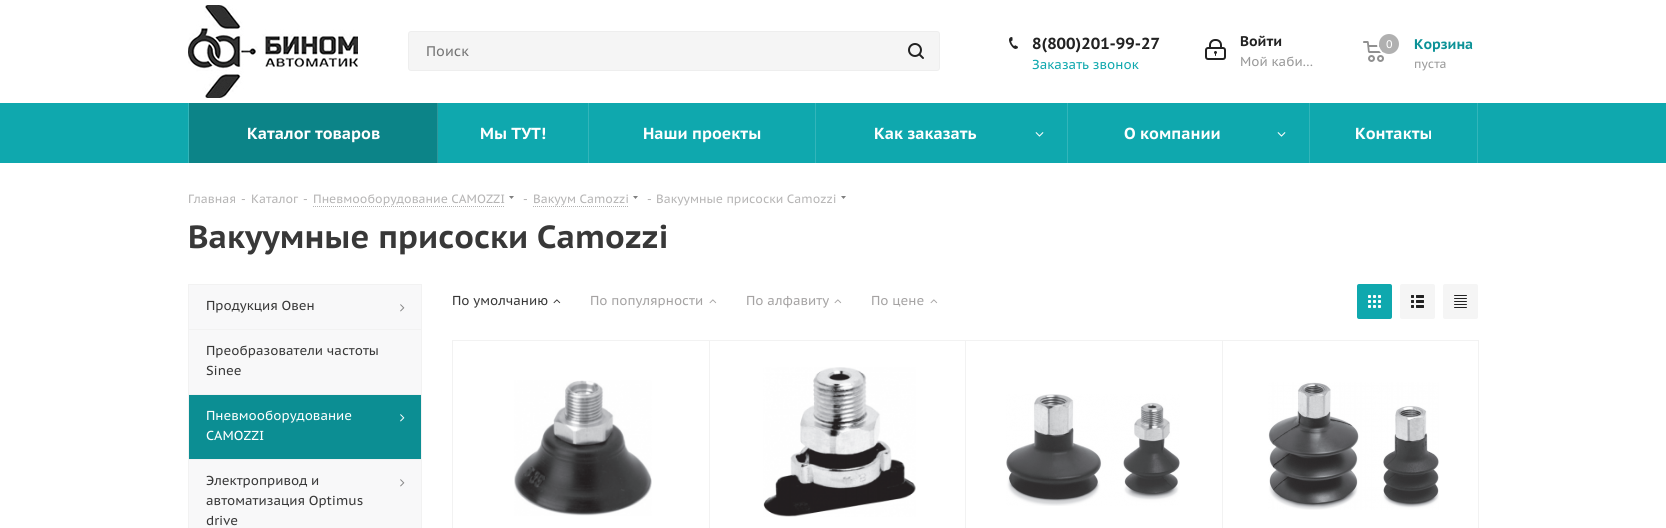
#include <cairo.h>
#include <math.h>
#include <stddef.h>

typedef struct { const char *family; double size; int italic, bold; unsigned color; } style_t;
static cairo_t *ctx;

static void ink(unsigned color) {
    cairo_set_source_rgb(ctx, (color >> 16) / 255.0, (color >> 8 & 255) / 255.0, (color & 255) / 255.0);
}

static void write(double x, double y, const char *s, const style_t *st) {
    cairo_select_font_face(ctx, st->family, st->italic ? CAIRO_FONT_SLANT_ITALIC : CAIRO_FONT_SLANT_NORMAL,
        st->bold ? CAIRO_FONT_WEIGHT_BOLD : CAIRO_FONT_WEIGHT_NORMAL);
    cairo_set_font_size(ctx, st->size);
    ink(st->color);
    cairo_move_to(ctx, x, y);
    cairo_show_text(ctx, s);
}

static void block(double x, double y, double w, double h, unsigned color) {
    ink(color);
    cairo_rectangle(ctx, x, y, w, h);
    cairo_fill(ctx);
}

static void round_path(double x, double y, double w, double h, double r) {
    cairo_new_sub_path(ctx);
    cairo_arc(ctx, x + w - r, y + h - r, r, 0, M_PI / 2);
    cairo_arc(ctx, x + r, y + h - r, r, M_PI / 2, M_PI);
    cairo_arc(ctx, x + r, y + r, r, M_PI, 1.5 * M_PI);
    cairo_arc(ctx, x + w - r, y + r, r, 1.5 * M_PI, 2 * M_PI);
    cairo_close_path(ctx);
}

static void paste(const char *path, double x, double y, double w, double h) {
    cairo_surface_t *image = cairo_image_surface_create_from_png(path);
    cairo_save(ctx);
    cairo_set_source_surface(ctx, image, x, y);
    cairo_rectangle(ctx, x, y, w, h);
    cairo_fill(ctx);
    cairo_restore(ctx);
    cairo_surface_destroy(image);
}

static const style_t s1 = {"PT Sans Caption", 14, 0, 0, 0x757575};
static const style_t s2 = {"PT Sans Caption", 16, 0, 1, 0x222222};
static const style_t s3 = {"PT Sans Caption", 13, 0, 0, 0x0fa8ae};
static const style_t s4 = {"PT Sans Caption", 14, 0, 1, 0x222222};
static const style_t s5 = {"PT Sans Caption", 13, 0, 0, 0x999999};
static const style_t s6 = {"PT Sans Caption", 11, 0, 0, 0xffffff};
static const style_t s7 = {"PT Sans Caption", 14, 0, 1, 0x0c9297};
static const style_t s8 = {"PT Sans Caption", 12, 0, 0, 0x999999};
static const style_t s9 = {"PT Sans Caption", 16, 0, 1, 0xffffff};
static const style_t s10 = {"PT Sans Caption", 12, 0, 0, 0xb6b5b5};
static const style_t s11 = {"PT Sans Caption", 32, 0, 1, 0x383838};
static const style_t s12 = {"PT Sans Caption", 13, 0, 0, 0x383838};
static const style_t s13 = {"PT Sans Caption", 13, 0, 0, 0xffffff};
static const style_t s14 = {"PT Sans Caption", 13, 0, 0, 0xa5a3a3};

int main(void) {
    cairo_surface_t *surface = cairo_image_surface_create(CAIRO_FORMAT_RGB24, 1666, 528);
    ctx = cairo_create(surface);
    cairo_font_options_t *options = cairo_font_options_create();
    cairo_font_options_set_hint_metrics(options, CAIRO_HINT_METRICS_OFF);
    cairo_font_options_set_hint_style(options, CAIRO_HINT_STYLE_NONE);
    cairo_set_font_options(ctx, options);
    cairo_set_miter_limit(ctx, 4);
    ink(0xffffff);
    cairo_paint(ctx);
    paste("pic1.png", 188, 5, 170, 93);
    ink(0xf5f5f5);
    round_path(408.5, 31.5, 531, 39, 2.5);
    cairo_fill_preserve(ctx);
    ink(0xeeeeee);
    cairo_set_line_width(ctx, 1);
    cairo_stroke(ctx);
    write(426, 56, "Поиск", &s1);
    paste("pic2.png", 908, 43, 16, 16);
    paste("pic3.png", 1009, 37, 9, 12);
    write(1032, 49, "8(800)201-99-27", &s2);
    write(1032, 69, "Заказать звонок", &s3);
    paste("pic4.png", 1205, 39, 21, 21);
    write(1240, 46, "Войти", &s4);
    write(1240, 66, "Мой каби…", &s5);
    paste("pic5.png", 1363, 41, 21, 21);
    cairo_arc(ctx, 1389, 44, 11, 0, 2 * M_PI);
    ink(0xffffff);
    cairo_set_line_width(ctx, 2);
    cairo_stroke(ctx);
    ink(0xb0b0b0);
    cairo_arc(ctx, 1389, 44, 10, 0, 2 * M_PI);
    cairo_fill(ctx);
    write(1386, 48, "0", &s6);
    write(1414, 49, "Корзина", &s7);
    write(1414, 68, "пуста", &s8);
    block(0, 103, 1666, 60, 0x0fa8ae);
    block(188, 103, 1, 60, 0x33b5ba);
    block(189, 103, 248, 60, 0x0c8488);
    block(437, 103, 1, 60, 0x30969a);
    write(247, 139, "Каталог товаров", &s9);
    block(588, 103, 1, 60, 0x33b5ba);
    write(480, 139, "Мы ТУТ!", &s9);
    block(815, 103, 1, 60, 0x33b5ba);
    write(643, 139, "Наши проекты", &s9);
    block(1067, 103, 1, 60, 0x33b5ba);
    write(874, 139, "Как заказать", &s9);
    paste("pic6.png", 1035, 132, 9, 5);
    block(1309, 103, 1, 60, 0x33b5ba);
    write(1124, 139, "О компании", &s9);
    paste("pic6.png", 1277, 132, 9, 5);
    block(1477, 103, 1, 60, 0x33b5ba);
    write(1355, 139, "Контакты", &s9);
    write(188, 203, "Главная", &s10);
    write(241, 203, "-", &s10);
    write(251, 203, "Каталог", &s10);
    write(303, 203, "-", &s10);
    write(313, 203, "Пневмооборудование CAMOZZI", &s10);
    cairo_new_path(ctx);
    cairo_move_to(ctx, 313, 206.5);
    cairo_line_to(ctx, 505, 206.5);
    ink(0xb4b4b4);
    cairo_set_line_width(ctx, 1);
    cairo_set_dash(ctx, (double[]){1, 1}, 2, 0);
    cairo_stroke(ctx);
    paste("pic7.png", 509, 196, 5, 3);
    write(523, 203, "-", &s10);
    write(533, 203, "Вакуум Camozzi", &s10);
    cairo_new_path(ctx);
    cairo_move_to(ctx, 533, 206.5);
    cairo_line_to(ctx, 629, 206.5);
    ink(0xb4b4b4);
    cairo_stroke(ctx);
    paste("pic7.png", 633, 196, 5, 3);
    write(647, 203, "-", &s10);
    write(656, 203, "Вакуумные присоски Camozzi", &s10);
    paste("pic7.png", 841, 196, 5, 3);
    write(188, 248, "Вакуумные присоски Camozzi", &s11);
    block(189, 285, 232, 44, 0xf8f8f9);
    block(188, 284, 234, 1, 0xf2f2f2);
    block(421, 284, 1, 45, 0xf2f2f2);
    block(188, 284, 1, 45, 0xf2f2f2);
    write(206, 310, "Продукция Овен", &s12);
    paste("pic8.png", 400, 304, 5, 8);
    block(189, 330, 232, 64, 0xf8f8f9);
    block(188, 329, 234, 1, 0xf2f2f2);
    block(421, 329, 1, 65, 0xf2f2f2);
    block(188, 329, 1, 65, 0xf2f2f2);
    write(206, 355, "Преобразователи частоты", &s12);
    write(206, 375, "Sinee", &s12);
    block(189, 395, 232, 64, 0x0c8e93);
    block(188, 394, 234, 1, 0xf2f2f2);
    block(421, 394, 1, 65, 0xf2f2f2);
    block(188, 394, 1, 65, 0xf2f2f2);
    write(206, 420, "Пневмооборудование", &s13);
    paste("pic9.png", 400, 414, 5, 8);
    write(206, 440, "CAMOZZI", &s13);
    block(189, 460, 232, 68, 0xf8f8f9);
    block(188, 459, 234, 1, 0xf2f2f2);
    block(421, 459, 1, 69, 0xf2f2f2);
    block(188, 459, 1, 69, 0xf2f2f2);
    write(206, 485, "Электропривод и", &s12);
    paste("pic8.png", 400, 479, 5, 8);
    write(206, 505, "автоматизация Optimus", &s12);
    write(206, 525, "drive", &s12);
    write(452, 305, "По умолчанию", &s12);
    paste("pic10.png", 553, 299, 8, 5);
    write(590, 305, "По популярности", &s14);
    paste("pic11.png", 709, 299, 8, 5);
    write(746, 305, "По алфавиту", &s14);
    paste("pic11.png", 834, 299, 8, 5);
    write(871, 305, "По цене", &s14);
    paste("pic11.png", 930, 299, 8, 5);
    ink(0x0fa8ae);
    round_path(1357, 284, 35, 35, 2);
    cairo_fill(ctx);
    paste("pic12.png", 1368, 295, 13, 13);
    ink(0xf5f5f5);
    round_path(1400, 284, 35, 35, 2);
    cairo_fill(ctx);
    paste("pic13.png", 1411, 295, 13, 13);
    round_path(1443, 284, 35, 35, 2);
    cairo_fill(ctx);
    paste("pic14.png", 1454, 295, 13, 13);
    cairo_rectangle(ctx, 452.5, 340.5, 257, 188);
    ink(0xf2f2f2);
    cairo_set_dash(ctx, NULL, 0, 0);
    cairo_stroke(ctx);
    paste("pic15.png", 514, 380, 138, 136);
    cairo_rectangle(ctx, 709.5, 340.5, 256, 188);
    cairo_stroke(ctx);
    paste("pic16.png", 763, 367, 153, 150);
    cairo_rectangle(ctx, 965.5, 340.5, 257, 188);
    cairo_stroke(ctx);
    paste("pic17.png", 1006, 394, 174, 112);
    cairo_rectangle(ctx, 1222.5, 340.5, 256, 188);
    cairo_stroke(ctx);
    paste("pic18.png", 1268, 382, 171, 128);
    cairo_surface_write_to_png(surface, "screenshot.png");
    cairo_font_options_destroy(options);
    cairo_destroy(ctx);
    cairo_surface_destroy(surface);
    return 0;
}
